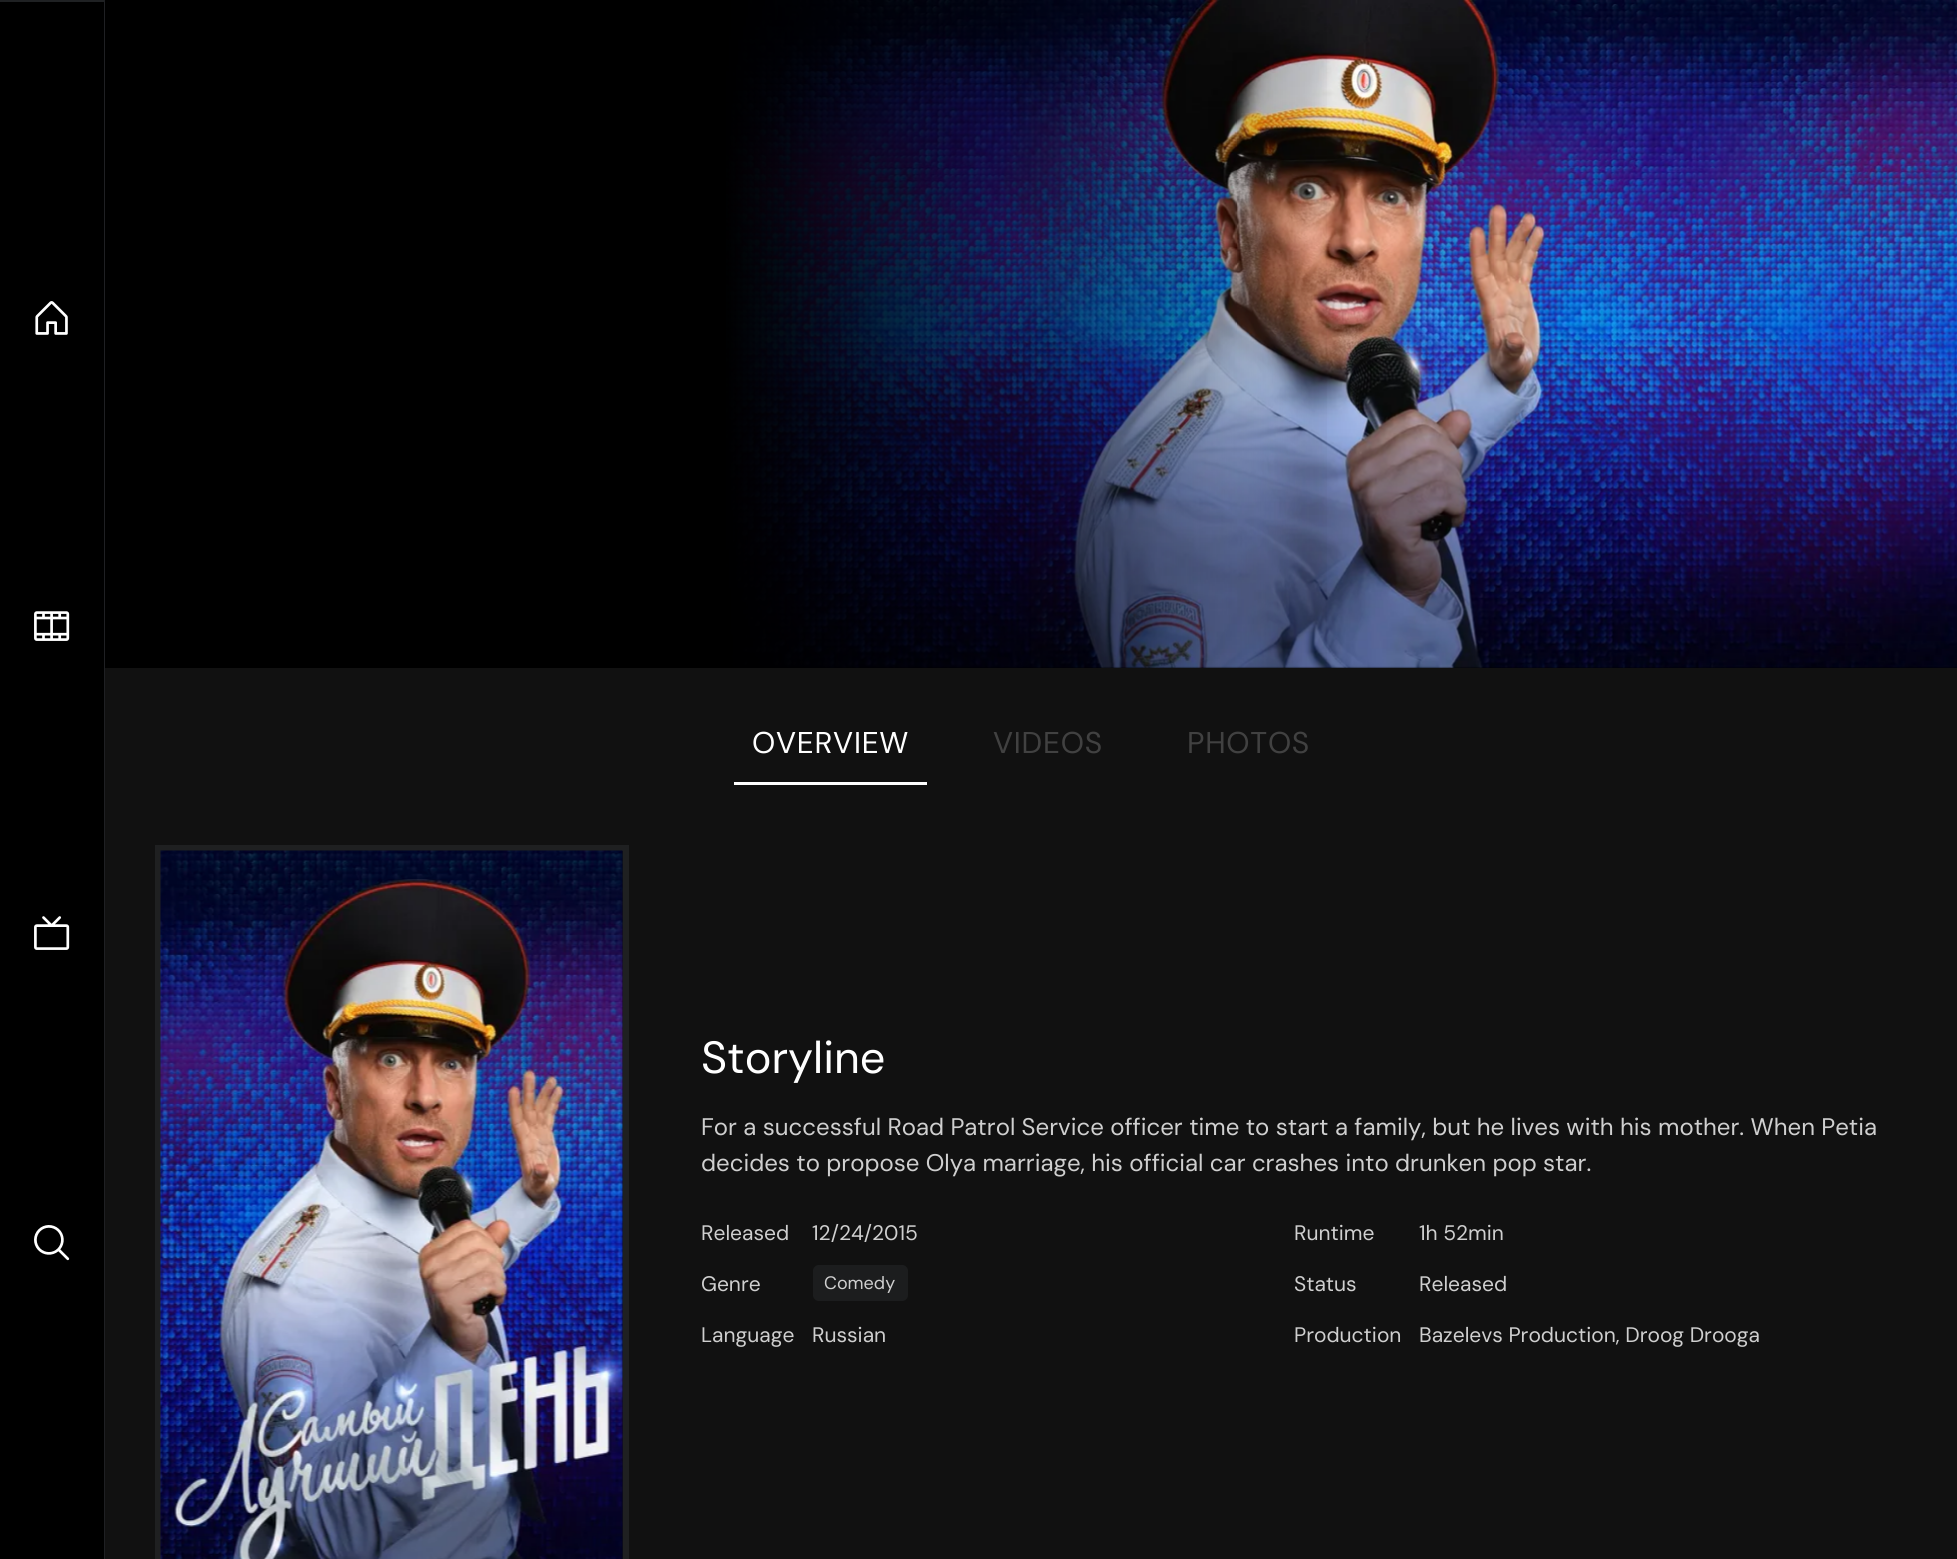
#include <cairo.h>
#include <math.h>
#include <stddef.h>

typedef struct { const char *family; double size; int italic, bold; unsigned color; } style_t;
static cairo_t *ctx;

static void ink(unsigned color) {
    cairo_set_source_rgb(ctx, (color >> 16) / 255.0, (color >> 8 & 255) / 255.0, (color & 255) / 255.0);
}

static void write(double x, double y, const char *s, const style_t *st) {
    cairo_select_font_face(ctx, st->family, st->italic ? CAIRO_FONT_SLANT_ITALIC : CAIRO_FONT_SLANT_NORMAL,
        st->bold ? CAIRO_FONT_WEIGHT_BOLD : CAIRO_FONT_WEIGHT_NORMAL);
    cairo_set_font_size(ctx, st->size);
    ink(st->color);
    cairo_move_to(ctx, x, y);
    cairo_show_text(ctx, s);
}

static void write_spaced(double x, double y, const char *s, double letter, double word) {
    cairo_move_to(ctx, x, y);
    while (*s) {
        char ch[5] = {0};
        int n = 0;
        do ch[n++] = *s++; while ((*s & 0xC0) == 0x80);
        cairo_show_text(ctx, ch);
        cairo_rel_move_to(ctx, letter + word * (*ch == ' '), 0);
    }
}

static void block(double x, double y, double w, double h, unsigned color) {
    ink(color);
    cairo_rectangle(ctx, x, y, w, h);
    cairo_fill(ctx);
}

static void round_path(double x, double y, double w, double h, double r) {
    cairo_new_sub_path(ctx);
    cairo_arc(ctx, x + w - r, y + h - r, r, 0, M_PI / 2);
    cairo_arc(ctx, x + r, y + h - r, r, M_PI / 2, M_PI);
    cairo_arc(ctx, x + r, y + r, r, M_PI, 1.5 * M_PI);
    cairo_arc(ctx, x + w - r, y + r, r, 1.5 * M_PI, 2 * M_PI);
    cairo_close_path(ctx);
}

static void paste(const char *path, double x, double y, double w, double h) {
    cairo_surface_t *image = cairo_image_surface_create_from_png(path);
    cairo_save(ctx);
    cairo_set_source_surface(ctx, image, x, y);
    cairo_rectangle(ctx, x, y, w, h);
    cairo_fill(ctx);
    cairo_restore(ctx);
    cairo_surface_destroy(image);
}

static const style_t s1 = {"DM Sans", 45, 0, 0, 0xffffff};
static const style_t s2 = {"DM Sans", 24, 0, 0, 0xcfcfcf};
static const style_t s3 = {"DM Sans", 21, 0, 0, 0xcfcfcf};
static const style_t s4 = {"DM Sans", 18, 0, 0, 0xcfcfcf};

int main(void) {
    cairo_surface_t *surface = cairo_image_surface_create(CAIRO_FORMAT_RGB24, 1957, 1559);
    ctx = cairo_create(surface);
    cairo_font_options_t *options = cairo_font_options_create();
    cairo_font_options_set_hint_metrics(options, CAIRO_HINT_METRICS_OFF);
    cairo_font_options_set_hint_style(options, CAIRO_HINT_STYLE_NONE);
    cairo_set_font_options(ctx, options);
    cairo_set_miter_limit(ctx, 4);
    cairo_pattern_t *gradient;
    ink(0x111111);
    cairo_paint(ctx);
    block(0, 0, 105, 1559, 0x000000);
    ink(0x1f2123);
    cairo_new_path(ctx);
    cairo_move_to(ctx, 0, 0);
    cairo_line_to(ctx, 105, 0);
    cairo_line_to(ctx, 104, 2);
    cairo_line_to(ctx, 0, 2);
    cairo_close_path(ctx);
    cairo_fill(ctx);
    cairo_set_source_rgba(ctx, 0.612, 0.639, 0.686, 0.2);
    cairo_new_path(ctx);
    cairo_move_to(ctx, 105, 0);
    cairo_line_to(ctx, 105, 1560);
    cairo_line_to(ctx, 104, 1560);
    cairo_line_to(ctx, 104, 2);
    cairo_close_path(ctx);
    cairo_fill(ctx);
    paste("pic1.png", 35, 301, 33, 34);
    paste("pic2.png", 34, 611, 36, 30);
    paste("pic3.png", 34, 916, 36, 34);
    paste("pic4.png", 34, 1225, 36, 36);
    block(726, 666, 1231, 2, 0x000000);
    paste("pic5.png", 726, 0, 1231, 668);
    gradient = cairo_pattern_create_linear(105, 334, 1340, 334);
    cairo_pattern_add_color_stop_rgba(gradient, 0, 0, 0, 0, 1);
    cairo_pattern_add_color_stop_rgba(gradient, 0.5, 0, 0, 0, 1);
    cairo_pattern_add_color_stop_rgba(gradient, 1, 0, 0, 0, 0);
    cairo_set_source(ctx, gradient);
    cairo_pattern_destroy(gradient);
    cairo_rectangle(ctx, 105, 0, 1222, 668);
    cairo_fill(ctx);
    block(734, 782, 193, 3, 0xffffff);
    cairo_select_font_face(ctx, "DM Sans", CAIRO_FONT_SLANT_NORMAL, CAIRO_FONT_WEIGHT_NORMAL);
    cairo_set_font_size(ctx, 30);
    write_spaced(752, 753, "OVERVIEW", 0.75, 0);
    ink(0x414141);
    write_spaced(993, 753, "VIDEOS", 0.75, 0);
    write_spaced(1187, 753, "PHOTOS", 0.75, 0);
    cairo_rectangle(ctx, 158, 848, 468, 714);
    ink(0x1f2021);
    cairo_set_line_width(ctx, 6);
    cairo_stroke(ctx);
    paste("pic6.png", 160, 850, 463, 709);
    write(701, 1073, "Storyline", &s1);
    write(701, 1135, "For a successful Road Patrol Service officer time to start a family, but he lives with his mother. When Petia", &s2);
    write(701, 1171, "decides to propose Olya marriage, his official car crashes into drunken pop star.", &s2);
    write(701, 1240, "Released", &s3);
    write(812, 1240, "12/24/2015", &s3);
    write(1294, 1240, "Runtime", &s3);
    write(1419, 1240, "1h 52min", &s3);
    write(701, 1291, "Genre", &s3);
    ink(0x1c1d1e);
    round_path(813, 1265, 95, 36, 6);
    cairo_fill(ctx);
    write(824, 1289, "Comedy", &s4);
    write(1294, 1291, "Status", &s3);
    write(1419, 1291, "Released", &s3);
    write(701, 1342, "Language", &s3);
    write(812, 1342, "Russian", &s3);
    write(1294, 1342, "Production", &s3);
    write(1419, 1342, "Bazelevs Production, Droog Drooga", &s3);
    cairo_surface_write_to_png(surface, "screenshot.png");
    cairo_font_options_destroy(options);
    cairo_destroy(ctx);
    cairo_surface_destroy(surface);
    return 0;
}
